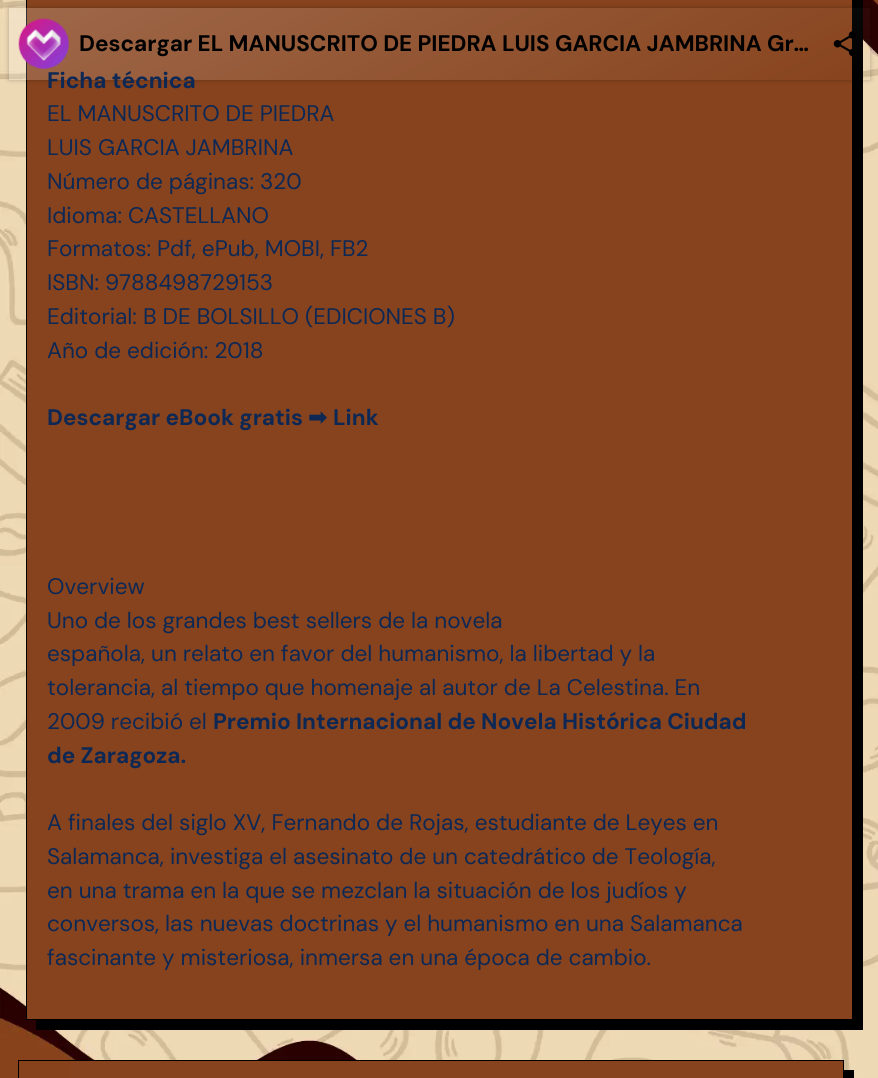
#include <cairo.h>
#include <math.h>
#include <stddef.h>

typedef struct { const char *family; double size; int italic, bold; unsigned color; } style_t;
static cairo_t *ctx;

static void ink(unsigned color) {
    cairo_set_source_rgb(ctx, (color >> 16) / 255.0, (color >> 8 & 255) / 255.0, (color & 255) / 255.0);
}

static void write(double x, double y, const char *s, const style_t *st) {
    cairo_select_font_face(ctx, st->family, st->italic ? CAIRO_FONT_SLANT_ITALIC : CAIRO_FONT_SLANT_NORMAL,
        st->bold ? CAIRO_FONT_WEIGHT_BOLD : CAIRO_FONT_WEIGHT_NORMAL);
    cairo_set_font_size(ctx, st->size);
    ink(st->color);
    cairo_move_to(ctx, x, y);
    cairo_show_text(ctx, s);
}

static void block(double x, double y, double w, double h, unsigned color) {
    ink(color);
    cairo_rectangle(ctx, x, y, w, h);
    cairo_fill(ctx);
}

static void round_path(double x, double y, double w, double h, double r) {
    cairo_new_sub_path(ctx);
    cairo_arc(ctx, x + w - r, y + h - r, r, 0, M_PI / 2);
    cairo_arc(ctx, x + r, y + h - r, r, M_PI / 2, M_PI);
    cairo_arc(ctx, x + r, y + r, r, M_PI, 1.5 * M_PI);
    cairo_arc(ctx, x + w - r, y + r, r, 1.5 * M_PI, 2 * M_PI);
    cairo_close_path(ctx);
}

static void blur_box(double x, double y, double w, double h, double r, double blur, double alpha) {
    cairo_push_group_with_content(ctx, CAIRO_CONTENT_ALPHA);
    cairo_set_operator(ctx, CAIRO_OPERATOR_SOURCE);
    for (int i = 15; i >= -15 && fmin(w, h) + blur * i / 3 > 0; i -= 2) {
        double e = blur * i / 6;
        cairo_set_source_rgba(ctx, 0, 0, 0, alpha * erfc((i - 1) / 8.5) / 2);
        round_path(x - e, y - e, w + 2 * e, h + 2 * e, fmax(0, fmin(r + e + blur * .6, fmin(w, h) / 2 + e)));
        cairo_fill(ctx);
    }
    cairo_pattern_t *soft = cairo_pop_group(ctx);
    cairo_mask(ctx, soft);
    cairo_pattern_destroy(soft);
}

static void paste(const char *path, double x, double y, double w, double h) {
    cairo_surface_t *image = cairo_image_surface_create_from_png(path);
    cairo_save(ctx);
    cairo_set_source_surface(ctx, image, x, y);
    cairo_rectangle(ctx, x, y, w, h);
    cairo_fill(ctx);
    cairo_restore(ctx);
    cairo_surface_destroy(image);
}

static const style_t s1 = {"DM Sans", 22.5, 0, 1, 0x000000};
static const style_t s2 = {"DM Sans", 22.5, 0, 1, 0x0d2854};
static const style_t s3 = {"DM Sans", 22.5, 0, 0, 0x0d2854};
static const style_t s4 = {"DejaVu Sans", 22.5, 0, 1, 0x0d2854};

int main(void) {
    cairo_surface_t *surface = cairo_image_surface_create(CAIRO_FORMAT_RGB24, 878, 1078);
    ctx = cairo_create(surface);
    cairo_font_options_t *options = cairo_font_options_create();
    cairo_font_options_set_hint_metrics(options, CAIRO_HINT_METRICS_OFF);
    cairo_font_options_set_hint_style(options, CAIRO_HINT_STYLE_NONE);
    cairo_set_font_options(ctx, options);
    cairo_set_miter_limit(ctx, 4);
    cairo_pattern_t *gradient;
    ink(0xffffff);
    cairo_paint(ctx);
    paste("pic1.png", 0, 0, 878, 1078);
    ink(0x000000);
    cairo_new_path(ctx);
    cairo_move_to(ctx, 36, 1020);
    cairo_line_to(ctx, 36, 1030);
    cairo_line_to(ctx, 863, 1030);
    cairo_line_to(ctx, 863, -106);
    cairo_line_to(ctx, 852, -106);
    cairo_line_to(ctx, 852, 1020);
    cairo_close_path(ctx);
    cairo_fill(ctx);
    ink(0x87431d);
    cairo_rectangle(ctx, 26.5, -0.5, 826, 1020);
    cairo_fill_preserve(ctx);
    ink(0x000000);
    cairo_set_line_width(ctx, 1);
    cairo_stroke(ctx);
    cairo_save(ctx);
    cairo_set_fill_rule(ctx, CAIRO_FILL_RULE_EVEN_ODD);
    cairo_new_path(ctx);
    cairo_move_to(ctx, 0, 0);
    cairo_line_to(ctx, 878, 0);
    cairo_line_to(ctx, 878, 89);
    cairo_line_to(ctx, 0, 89);
    cairo_close_path(ctx);
    cairo_move_to(ctx, 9, 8);
    cairo_line_to(ctx, 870, 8);
    cairo_line_to(ctx, 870, 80);
    cairo_line_to(ctx, 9, 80);
    cairo_close_path(ctx);
    cairo_clip(ctx);
    ink(0x000000);
    blur_box(9, 8, 861, 72, 0, 2.5, 0.25);
    cairo_restore(ctx);
    gradient = cairo_pattern_create_linear(336, -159, 543, 247);
    cairo_pattern_add_color_stop_rgba(gradient, 0, 1, 1, 1, 0.2);
    cairo_pattern_add_color_stop_rgba(gradient, 1, 1, 1, 1, 0);
    cairo_set_source(ctx, gradient);
    cairo_pattern_destroy(gradient);
    cairo_rectangle(ctx, 9, 8, 861, 72);
    cairo_fill(ctx);
    paste("pic2.png", 18, 18, 51, 51);
    write(79, 51, "Descargar EL MANUSCRITO DE PIEDRA LUIS GARCIA JAMBRINA Gr…", &s1);
    paste("pic3.png", 833, 31, 23, 25);
    write(47, 88, "Ficha técnica", &s2);
    write(47, 121, "EL MANUSCRITO DE PIEDRA", &s3);
    write(47, 155, "LUIS GARCIA JAMBRINA", &s3);
    write(47, 189, "Número de páginas: 320", &s3);
    write(47, 223, "Idioma: CASTELLANO", &s3);
    write(47, 256, "Formatos: Pdf, ePub, MOBI, FB2", &s3);
    write(47, 290, "ISBN: 9788498729153", &s3);
    write(47, 324, "Editorial: B DE BOLSILLO (EDICIONES B)", &s3);
    write(47, 358, "Año de edición: 2018", &s3);
    write(47, 425, "Descargar eBook gratis", &s2);
    write(308, 425, "➡", &s4);
    write(333, 425, "Link", &s2);
    write(47, 594, "Overview", &s3);
    write(47, 628, "Uno de los grandes best sellers de la novela", &s3);
    write(47, 661, "española, un relato en favor del humanismo, la libertad y la", &s3);
    write(47, 695, "tolerancia, al tiempo que homenaje al autor de La Celestina. En", &s3);
    write(47, 729, "2009 recibió el", &s3);
    write(213, 729, "Premio Internacional de Novela Histórica Ciudad", &s2);
    write(47, 763, "de Zaragoza.", &s2);
    write(47, 830, "A finales del siglo XV, Fernando de Rojas, estudiante de Leyes en", &s3);
    write(47, 864, "Salamanca, investiga el asesinato de un catedrático de Teología,", &s3);
    write(47, 898, "en una trama en la que se mezclan la situación de los judíos y", &s3);
    write(47, 931, "conversos, las nuevas doctrinas y el humanismo en una Salamanca", &s3);
    write(47, 965, "fascinante y misteriosa, inmersa en una época de cambio.", &s3);
    ink(0x000000);
    cairo_new_path(ctx);
    cairo_move_to(ctx, 28, 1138);
    cairo_line_to(ctx, 28, 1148);
    cairo_line_to(ctx, 854, 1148);
    cairo_line_to(ctx, 854, 1070);
    cairo_line_to(ctx, 844, 1070);
    cairo_line_to(ctx, 844, 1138);
    cairo_close_path(ctx);
    cairo_fill(ctx);
    block(70, 1061, 773, 17, 0x87431d);
    cairo_rectangle(ctx, 18.5, 1060.5, 825, 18);
    ink(0x000000);
    cairo_stroke(ctx);
    cairo_surface_write_to_png(surface, "screenshot.png");
    cairo_font_options_destroy(options);
    cairo_destroy(ctx);
    cairo_surface_destroy(surface);
    return 0;
}
